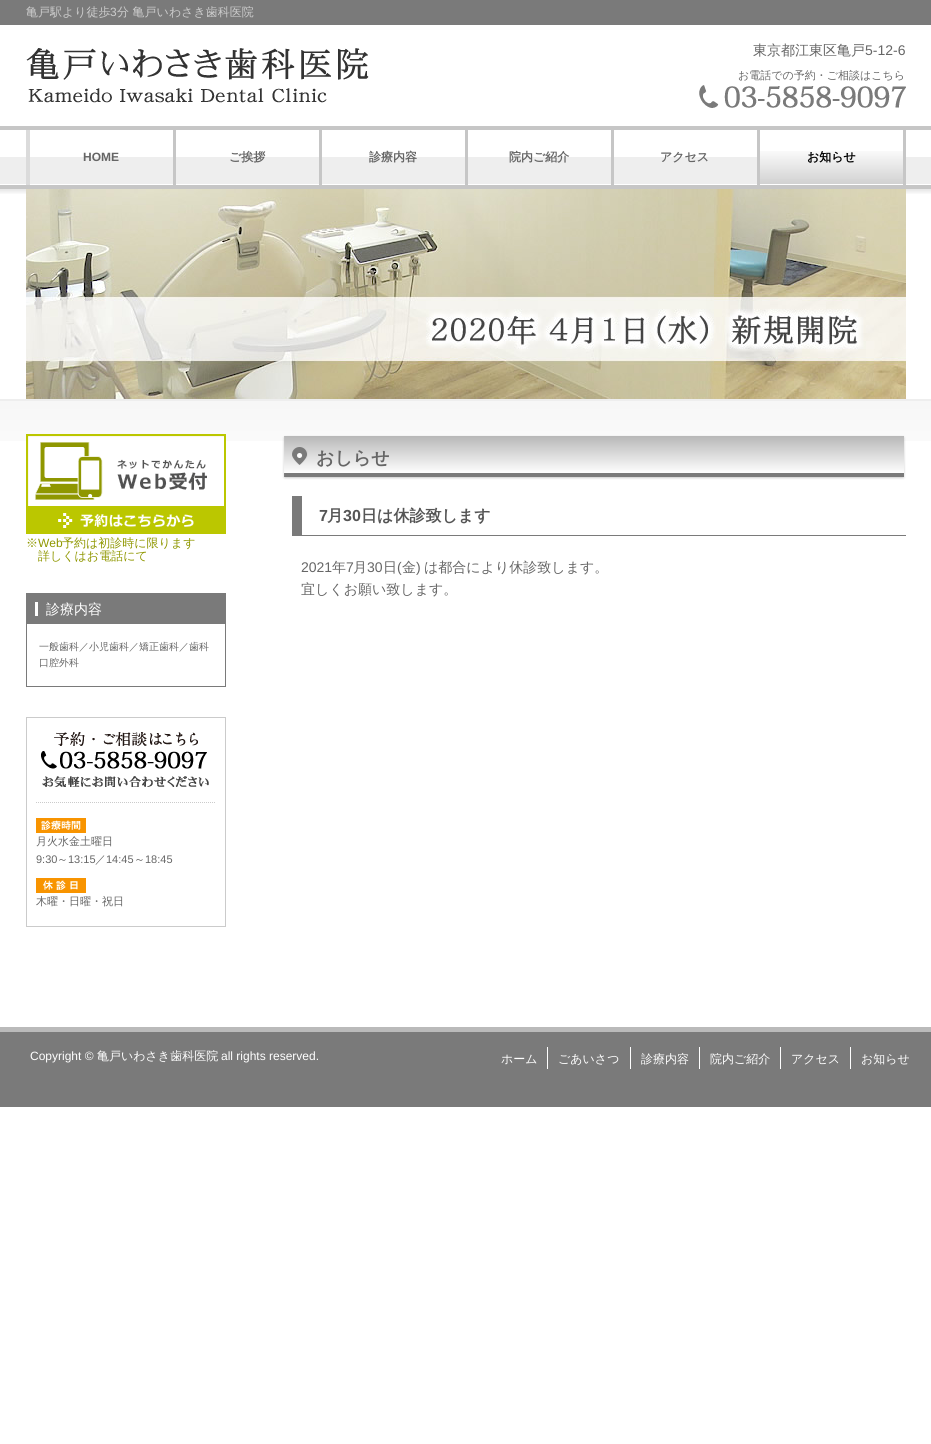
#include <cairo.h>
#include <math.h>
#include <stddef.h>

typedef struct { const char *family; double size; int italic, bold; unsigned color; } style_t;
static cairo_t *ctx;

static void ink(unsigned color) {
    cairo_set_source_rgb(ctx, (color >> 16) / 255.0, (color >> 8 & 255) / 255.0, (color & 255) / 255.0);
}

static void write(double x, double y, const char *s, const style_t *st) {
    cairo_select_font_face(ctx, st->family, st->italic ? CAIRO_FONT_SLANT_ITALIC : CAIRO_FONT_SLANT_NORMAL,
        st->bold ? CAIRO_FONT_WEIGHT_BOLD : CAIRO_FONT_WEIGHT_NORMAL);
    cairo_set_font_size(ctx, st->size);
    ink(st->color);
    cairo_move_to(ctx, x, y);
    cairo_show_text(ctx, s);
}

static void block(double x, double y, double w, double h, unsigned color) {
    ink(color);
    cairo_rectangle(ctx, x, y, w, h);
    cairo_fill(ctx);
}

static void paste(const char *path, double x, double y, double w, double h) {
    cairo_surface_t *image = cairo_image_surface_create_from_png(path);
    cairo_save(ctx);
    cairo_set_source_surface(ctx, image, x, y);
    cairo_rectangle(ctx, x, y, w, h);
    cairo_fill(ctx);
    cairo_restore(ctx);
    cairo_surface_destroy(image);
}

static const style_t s1 = {"WenQuanYi Zen Hei Medium", 12, 0, 0, 0xcccccc};
static const style_t s2 = {"Liberation Sans", 12, 0, 0, 0xcccccc};
static const style_t s3 = {"WenQuanYi Zen Hei Medium", 14, 0, 0, 0x666666};
static const style_t s4 = {"Liberation Sans", 14, 0, 0, 0x666666};
static const style_t s5 = {"WenQuanYi Zen Hei Medium", 11, 0, 0, 0x666666};
static const style_t s6 = {"Liberation Sans", 12, 0, 1, 0x666666};
static const style_t s7 = {"WenQuanYi Zen Hei", 12, 0, 1, 0x666666};
static const style_t s8 = {"WenQuanYi Zen Hei", 12, 0, 1, 0x000000};
static const style_t s9 = {"WenQuanYi Zen Hei Medium", 12, 0, 0, 0x8f9700};
static const style_t s10 = {"Liberation Sans", 12, 0, 0, 0x8f9700};
static const style_t s11 = {"WenQuanYi Zen Hei Medium", 14, 0, 0, 0xffffff};
static const style_t s12 = {"WenQuanYi Zen Hei Medium", 10, 0, 0, 0x666666};
static const style_t s13 = {"Liberation Sans", 11, 0, 0, 0x666666};
static const style_t s14 = {"WenQuanYi Zen Hei", 18, 0, 1, 0x666666};
static const style_t s15 = {"Liberation Sans", 16, 0, 1, 0x555555};
static const style_t s16 = {"WenQuanYi Zen Hei", 16, 0, 1, 0x555555};
static const style_t s17 = {"Liberation Sans", 12, 0, 0, 0xffffff};
static const style_t s18 = {"WenQuanYi Zen Hei Medium", 12, 0, 0, 0xffffff};

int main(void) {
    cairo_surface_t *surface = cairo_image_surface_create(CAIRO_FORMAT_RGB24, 931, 1444);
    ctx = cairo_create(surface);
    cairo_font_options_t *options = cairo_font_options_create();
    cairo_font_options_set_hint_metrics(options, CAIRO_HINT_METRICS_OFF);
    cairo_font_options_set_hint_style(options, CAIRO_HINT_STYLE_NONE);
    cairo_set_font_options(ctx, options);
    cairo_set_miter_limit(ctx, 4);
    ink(0xffffff);
    cairo_paint(ctx);
    block(0, 0, 931, 25, 0x7a7a7a);
    write(26, 16, "亀戸駅より徒歩", &s1);
    write(110, 16, "3", &s2);
    write(117, 16, "分 亀戸いわさき歯科医院", &s1);
    paste("pic1.png", 26, 48, 343, 55);
    write(753, 55, "東京都江東区亀戸", &s3);
    write(865, 55, "5-12-6", &s4);
    write(738, 79, "お電話での予約・ご相談はこちら", &s5);
    paste("pic2.png", 699, 85, 207, 23);
    paste("pic3.png", 0, 126, 931, 63);
    block(26, 130, 4, 55, 0xdbdbdb);
    block(173, 130, 3, 55, 0xc6c6c6);
    write(83, 161, "HOME", &s6);
    block(319, 130, 3, 55, 0xc6c6c6);
    write(229, 161, "ご挨拶", &s7);
    block(465, 130, 3, 55, 0xc6c6c6);
    write(369, 161, "診療内容", &s7);
    block(611, 130, 3, 55, 0xc6c6c6);
    write(509, 161, "院内ご紹介", &s7);
    block(757, 130, 3, 55, 0xc6c6c6);
    write(660, 161, "アクセス", &s7);
    block(903, 130, 3, 55, 0xc6c6c6);
    paste("pic4.png", 760, 151, 143, 33);
    write(807, 161, "お知らせ", &s8);
    paste("pic5.png", 0, 189, 931, 5);
    paste("pic6.png", 26, 189, 880, 210);
    paste("pic7.png", 0, 399, 931, 42);
    paste("pic8.png", 26, 434, 200, 100);
    write(26, 547, "※", &s9);
    write(38, 547, "Web", &s10);
    write(62, 547, "予約は初診時に限ります", &s9);
    write(38, 560, "詳しくはお電話にて", &s9);
    block(26, 593, 200, 94, 0x7a7a7a);
    block(35, 602, 3, 14, 0xffffff);
    write(46, 614, "診療内容", &s11);
    block(27, 624, 198, 62, 0xffffff);
    write(39, 650, "一般歯科／小児歯科／矯正歯科／歯科", &s12);
    write(39, 666, "口腔外科", &s12);
    cairo_rectangle(ctx, 26.5, 717.5, 199, 209);
    ink(0xcbcbcb);
    cairo_set_line_width(ctx, 1);
    cairo_stroke(ctx);
    paste("pic9.png", 54, 732, 144, 14);
    paste("pic10.png", 41, 751, 168, 36);
    cairo_new_path(ctx);
    cairo_move_to(ctx, 36, 802.5);
    cairo_line_to(ctx, 216, 802.5);
    cairo_set_dash(ctx, (double[]){1, 1}, 2, 0);
    cairo_stroke(ctx);
    paste("pic11.png", 36, 818, 50, 15);
    write(36, 845, "月火水金土曜日", &s5);
    write(36, 863, "9:30", &s13);
    write(57, 863, "～", &s5);
    write(68, 863, "13:15", &s13);
    write(95, 863, "／", &s5);
    write(106, 863, "14:45", &s13);
    write(134, 863, "～", &s5);
    write(145, 863, "18:45", &s13);
    paste("pic12.png", 36, 878, 50, 15);
    write(36, 905, "木曜・日曜・祝日", &s5);
    paste("pic13.png", 282, 435, 624, 45);
    write(316, 464, "おしらせ", &s14);
    block(302, 535, 604, 1, 0x7a7a7a);
    block(292, 496, 10, 40, 0x7a7a7a);
    write(319, 521, "7", &s15);
    write(327, 521, "月", &s16);
    write(343, 521, "30", &s15);
    write(361, 521, "日は休診致します", &s16);
    write(301, 572, "2021", &s4);
    write(332, 572, "年", &s3);
    write(346, 572, "7", &s4);
    write(353, 572, "月", &s3);
    write(367, 572, "30", &s4);
    write(383, 572, "日", &s3);
    write(397, 572, "(", &s4);
    write(402, 572, "金", &s3);
    write(416, 572, ")", &s4);
    write(424, 572, "は都合により休診致します。", &s3);
    write(301, 594, "宜しくお願い致します。", &s3);
    block(0, 1032, 931, 75, 0x7a7a7a);
    block(0, 1027, 931, 5, 0xbababa);
    write(30, 1060, "Copyright ©", &s17);
    write(97, 1060, "亀戸いわさき歯科医院", &s18);
    write(221, 1060, "all rights reserved.", &s17);
    block(547, 1047, 1, 22, 0xffffff);
    write(501, 1063, "ホーム", &s18);
    block(630, 1047, 1, 22, 0xffffff);
    write(558, 1063, "ごあいさつ", &s18);
    block(699, 1047, 1, 22, 0xffffff);
    write(641, 1063, "診療内容", &s18);
    block(780, 1047, 1, 22, 0xffffff);
    write(710, 1063, "院内ご紹介", &s18);
    block(850, 1047, 1, 22, 0xffffff);
    write(791, 1063, "アクセス", &s18);
    write(861, 1063, "お知らせ", &s18);
    cairo_surface_write_to_png(surface, "screenshot.png");
    cairo_font_options_destroy(options);
    cairo_destroy(ctx);
    cairo_surface_destroy(surface);
    return 0;
}
